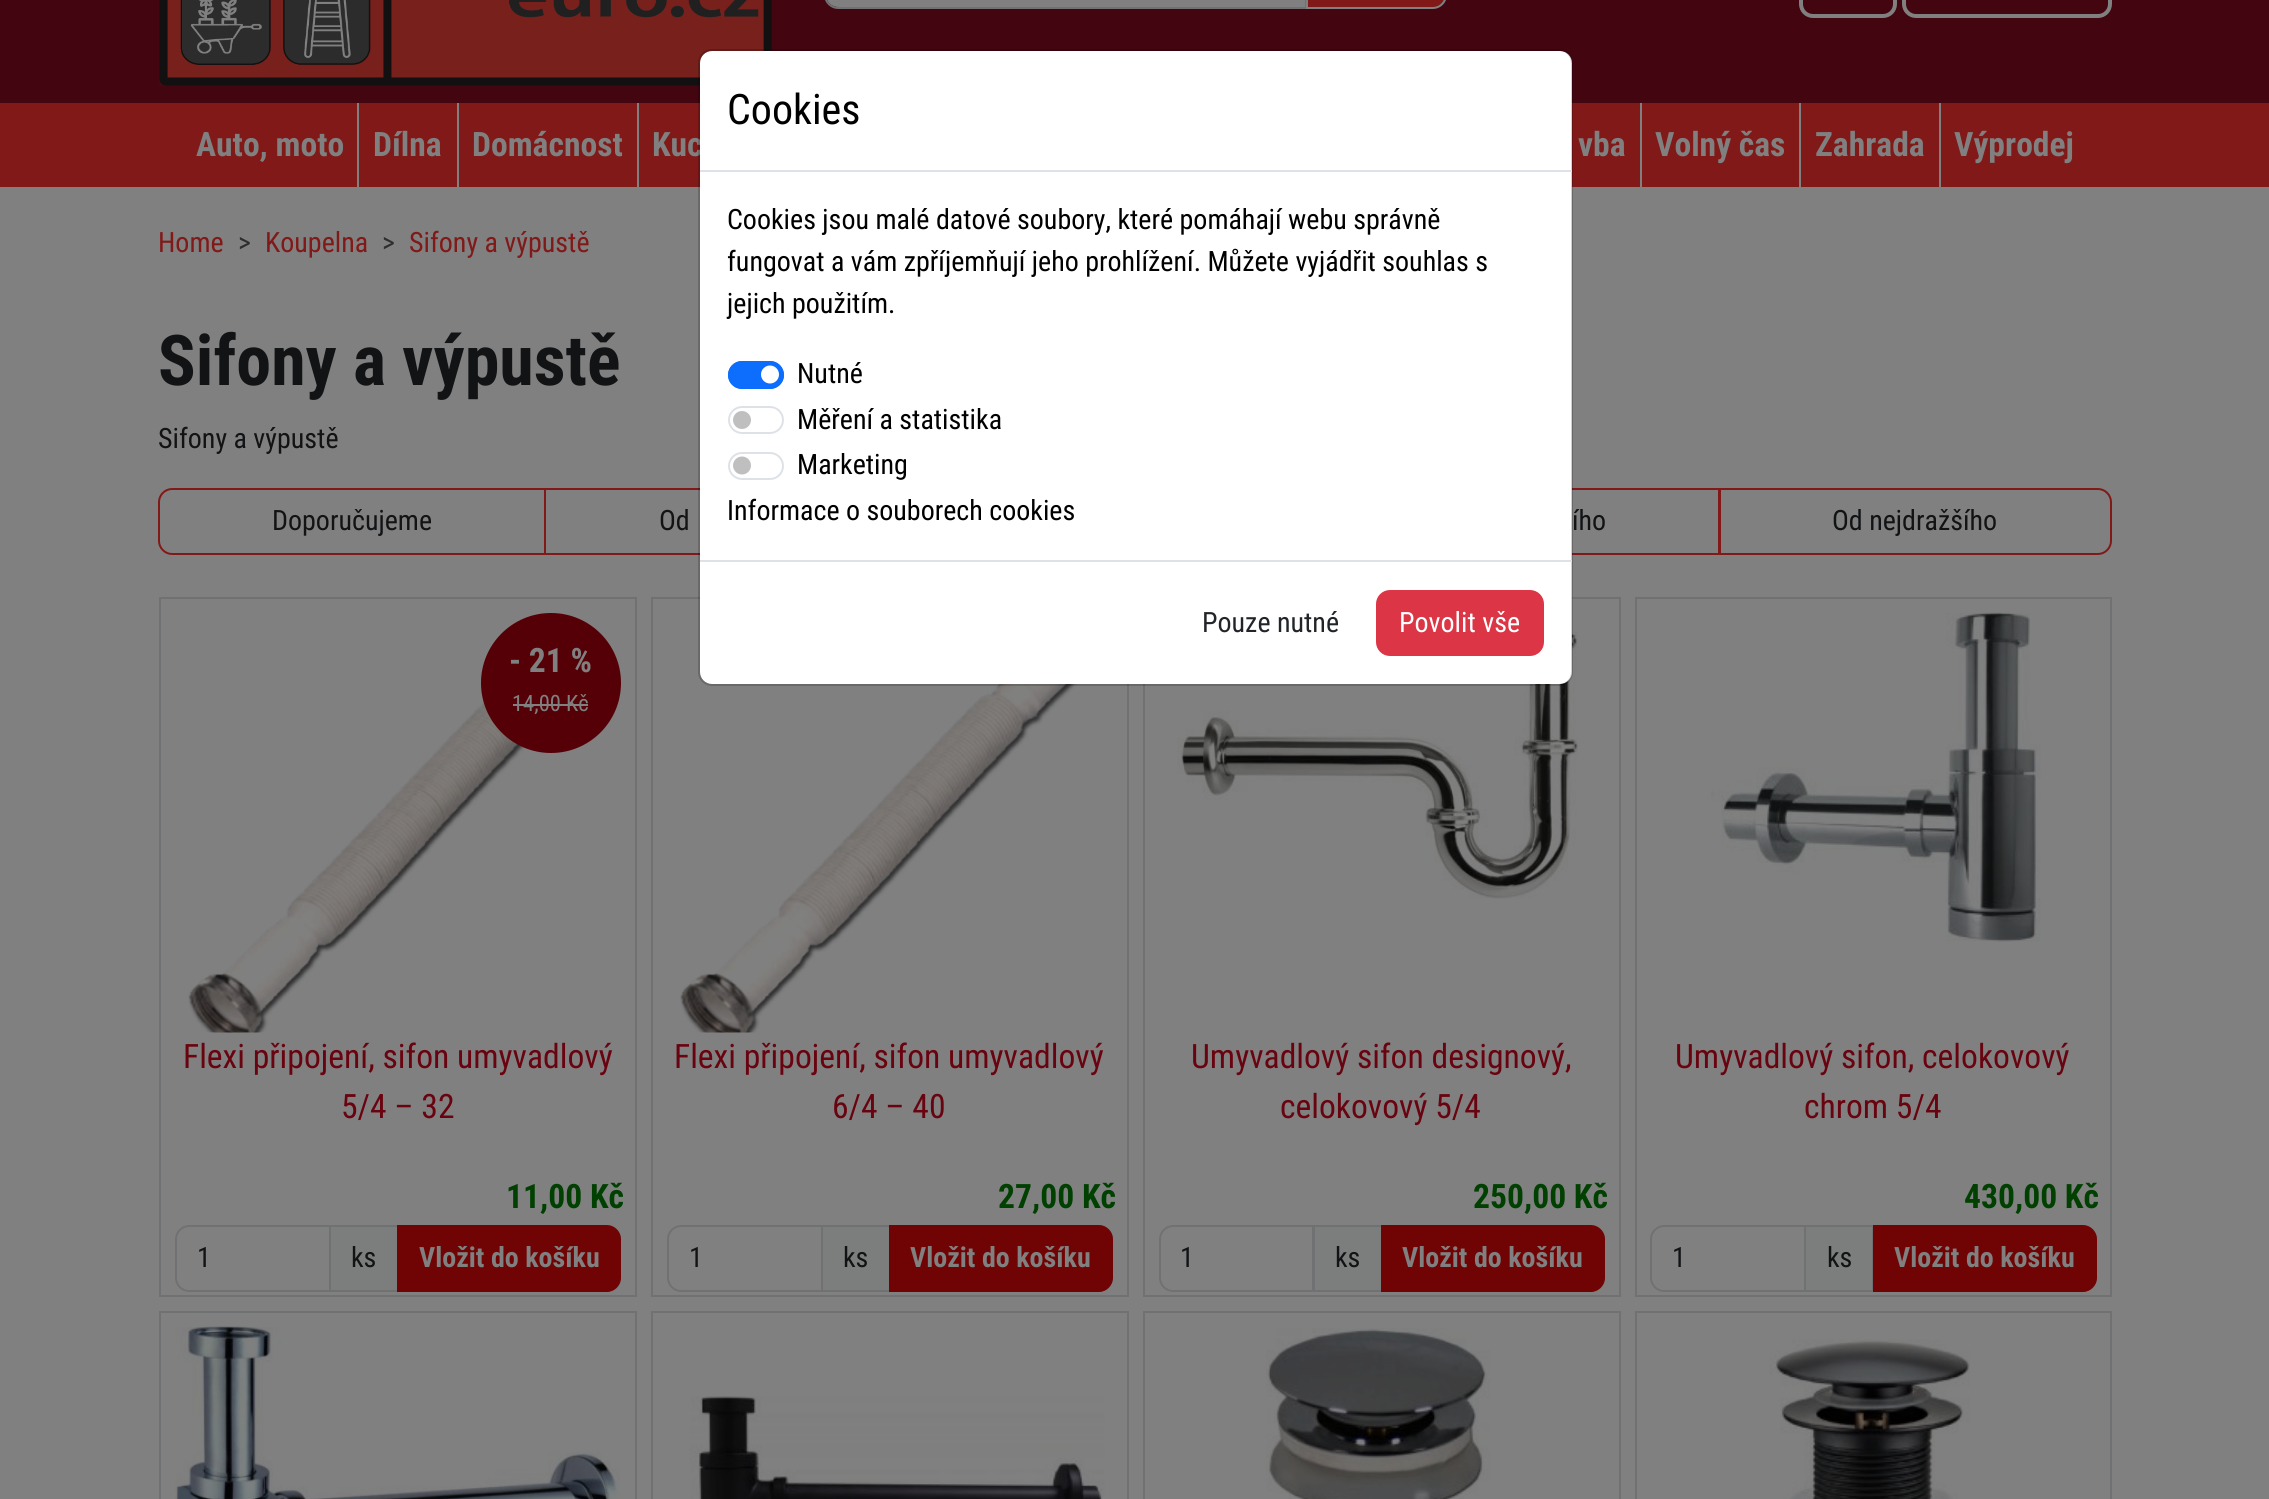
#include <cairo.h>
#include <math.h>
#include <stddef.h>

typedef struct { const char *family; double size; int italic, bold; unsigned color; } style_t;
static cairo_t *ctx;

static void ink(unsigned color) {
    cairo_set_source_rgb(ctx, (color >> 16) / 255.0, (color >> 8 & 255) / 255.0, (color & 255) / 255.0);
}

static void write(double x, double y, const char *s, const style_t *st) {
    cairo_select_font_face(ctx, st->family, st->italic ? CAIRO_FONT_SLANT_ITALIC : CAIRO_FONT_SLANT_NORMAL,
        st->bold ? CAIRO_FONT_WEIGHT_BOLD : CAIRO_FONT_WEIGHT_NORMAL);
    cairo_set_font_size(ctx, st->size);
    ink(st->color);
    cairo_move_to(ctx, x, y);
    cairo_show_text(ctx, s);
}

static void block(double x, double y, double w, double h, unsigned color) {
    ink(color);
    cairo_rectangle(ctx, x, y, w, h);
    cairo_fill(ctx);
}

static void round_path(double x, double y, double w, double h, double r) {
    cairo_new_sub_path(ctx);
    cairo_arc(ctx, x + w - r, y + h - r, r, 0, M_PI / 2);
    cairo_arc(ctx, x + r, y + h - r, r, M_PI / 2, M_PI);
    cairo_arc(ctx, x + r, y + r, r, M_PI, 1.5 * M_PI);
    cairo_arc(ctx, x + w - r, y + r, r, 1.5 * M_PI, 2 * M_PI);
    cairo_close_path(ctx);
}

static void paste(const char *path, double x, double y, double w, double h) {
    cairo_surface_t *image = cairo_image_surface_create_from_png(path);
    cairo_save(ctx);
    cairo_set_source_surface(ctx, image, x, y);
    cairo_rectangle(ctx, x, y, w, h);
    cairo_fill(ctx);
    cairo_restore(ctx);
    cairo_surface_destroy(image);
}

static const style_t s1 = {"Roboto Condensed", 33.6, 0, 1, 0x808080};
static const style_t s2 = {"Roboto Condensed", 42, 0, 0, 0x000000};
static const style_t s3 = {"Roboto Condensed", 28, 0, 0, 0x000000};
static const style_t s4 = {"Roboto Condensed", 28, 0, 0, 0x212529};
static const style_t s5 = {"Roboto Condensed", 28, 0, 0, 0xffffff};
static const style_t s6 = {"Roboto Condensed", 28, 0, 0, 0x801918};
static const style_t s7 = {"Roboto Condensed", 28, 0, 0, 0x2d2e30};
static const style_t s8 = {"Roboto Condensed", 70, 0, 1, 0x111315};
static const style_t s9 = {"Roboto Condensed", 28, 0, 0, 0x111315};
static const style_t s10 = {"Roboto Condensed", 22.5, 0, 0, 0x808080};
static const style_t s11 = {"Roboto Condensed", 33.6, 0, 0, 0x68030f};
static const style_t s12 = {"Roboto Condensed", 33.6, 0, 1, 0x004000};
static const style_t s13 = {"Roboto Condensed", 28, 0, 1, 0x808080};

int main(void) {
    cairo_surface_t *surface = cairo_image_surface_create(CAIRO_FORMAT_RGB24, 2269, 1499);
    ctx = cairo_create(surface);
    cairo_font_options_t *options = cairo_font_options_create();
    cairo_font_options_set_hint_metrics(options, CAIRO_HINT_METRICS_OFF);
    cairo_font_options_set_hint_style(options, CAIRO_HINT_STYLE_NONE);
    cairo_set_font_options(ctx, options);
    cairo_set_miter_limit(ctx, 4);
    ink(0x808080);
    cairo_paint(ctx);
    block(0, 0, 2269, 103, 0x430510);
    ink(0x808080);
    cairo_new_path(ctx);
    cairo_move_to(ctx, 838, -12);
    cairo_line_to(ctx, 1306, -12);
    cairo_line_to(ctx, 1306, 7);
    cairo_line_to(ctx, 838, 7);
    cairo_curve_to(ctx, 831.5, 7, 826, 1.5, 826, -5);
    cairo_line_to(ctx, 826, 0);
    cairo_curve_to(ctx, 826, -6.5, 831.5, -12, 838, -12);
    cairo_close_path(ctx);
    cairo_fill(ctx);
    cairo_new_path(ctx);
    cairo_move_to(ctx, 838, -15);
    cairo_line_to(ctx, 1306, -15);
    cairo_line_to(ctx, 1306, 8);
    cairo_line_to(ctx, 838, 8);
    cairo_curve_to(ctx, 831, 8, 825, 2, 825, -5);
    cairo_line_to(ctx, 825, -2);
    cairo_curve_to(ctx, 825, -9, 831, -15, 838, -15);
    cairo_close_path(ctx);
    ink(0x6f7173);
    cairo_stroke(ctx);
    ink(0x801918);
    cairo_new_path(ctx);
    cairo_move_to(ctx, 1307, -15);
    cairo_line_to(ctx, 1433, -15);
    cairo_curve_to(ctx, 1440, -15, 1446, -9, 1446, -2);
    cairo_line_to(ctx, 1446, -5);
    cairo_curve_to(ctx, 1446, 2, 1440, 8, 1433, 8);
    cairo_line_to(ctx, 1307, 8);
    cairo_close_path(ctx);
    cairo_fill_preserve(ctx);
    ink(0x808080);
    cairo_stroke(ctx);
    round_path(1801, -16, 94, 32, 12);
    cairo_set_line_width(ctx, 4);
    cairo_stroke(ctx);
    round_path(1904, -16, 206, 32, 12);
    cairo_stroke(ctx);
    paste("pic1.png", 159, 0, 613, 86);
    block(0, 103, 2269, 84, 0x801918);
    write(652, 156, "Kuc", &s1);
    cairo_new_path(ctx);
    cairo_move_to(ctx, 172, 489);
    cairo_line_to(ctx, 545, 489);
    cairo_line_to(ctx, 545, 554);
    cairo_line_to(ctx, 172, 554);
    cairo_curve_to(ctx, 165, 554, 159, 548, 159, 541);
    cairo_line_to(ctx, 159, 502);
    cairo_curve_to(ctx, 159, 495, 165, 489, 172, 489);
    cairo_close_path(ctx);
    ink(0x801918);
    cairo_set_line_width(ctx, 2);
    cairo_stroke(ctx);
    cairo_rectangle(ctx, 545, 489, 408, 65);
    cairo_stroke(ctx);
    cairo_rectangle(ctx, 1317, 489, 402, 65);
    cairo_stroke(ctx);
    cairo_rectangle(ctx, 652, 598, 476, 698);
    ink(0x6f7173);
    cairo_stroke(ctx);
    paste("pic3.png", 680, 631, 412, 402);
    cairo_rectangle(ctx, 1144, 598, 476, 698);
    cairo_stroke(ctx);
    paste("pic4.png", 1177, 631, 401, 268);
    ink(0xffffff);
    round_path(700, 51, 872, 633, 12);
    cairo_fill(ctx);
    round_path(699, 50, 873, 635, 13);
    cairo_set_source_rgba(ctx, 0, 0, 0, 0.18);
    cairo_stroke(ctx);
    block(700, 170, 872, 2, 0xdee2e6);
    write(727, 124, "Cookies", &s2);
    write(727, 229, "Cookies jsou malé datové soubory, které pomáhají webu správně", &s3);
    write(727, 271, "fungovat a vám zpříjemňují jeho prohlížení. Můžete vyjádřit souhlas s", &s3);
    write(727, 313, "jejich použitím.", &s3);
    ink(0x0d6efd);
    round_path(728, 361, 56, 28, 14);
    cairo_fill(ctx);
    ink(0xffffff);
    cairo_arc(ctx, 770, 374.5, 9, 0, 2 * M_PI);
    cairo_fill(ctx);
    round_path(729, 362, 54, 26, 13);
    ink(0x0d6efd);
    cairo_stroke(ctx);
    write(797, 383, "Nutné", &s3);
    ink(0xbfbfbf);
    cairo_new_path(ctx);
    cairo_arc(ctx, 742, 420, 9, 0, 2 * M_PI);
    cairo_fill(ctx);
    round_path(729, 407, 54, 26, 13);
    ink(0xdee2e6);
    cairo_stroke(ctx);
    write(797, 429, "Měření a statistika", &s3);
    ink(0xbfbfbf);
    cairo_new_path(ctx);
    cairo_arc(ctx, 742, 465.5, 9, 0, 2 * M_PI);
    cairo_fill(ctx);
    round_path(729, 453, 54, 26, 13);
    ink(0xdee2e6);
    cairo_stroke(ctx);
    write(797, 474, "Marketing", &s3);
    write(727, 520, "Informace o souborech cookies", &s3);
    block(700, 560, 872, 2, 0xdee2e6);
    write(1202, 632, "Pouze nutné", &s4);
    ink(0xdc3545);
    round_path(1377, 591, 166, 64, 13);
    cairo_fill_preserve(ctx);
    cairo_stroke(ctx);
    write(1399, 632, "Povolit vše", &s5);
    block(357, 103, 2, 84, 0x808080);
    write(196, 156, "Auto, moto", &s1);
    block(457, 103, 2, 84, 0x808080);
    write(373, 156, "Dílna", &s1);
    block(637, 103, 2, 84, 0x808080);
    write(472, 156, "Domácnost", &s1);
    block(1640, 103, 2, 84, 0x808080);
    write(1578, 156, "vba", &s1);
    block(1799, 103, 2, 84, 0x808080);
    write(1655, 156, "Volný čas", &s1);
    block(1939, 103, 2, 84, 0x808080);
    write(1815, 156, "Zahrada", &s1);
    write(1954, 156, "Výprodej", &s1);
    write(158, 252, "Home", &s6);
    write(238, 252, ">", &s7);
    write(265, 252, "Koupelna", &s6);
    write(382, 252, ">", &s7);
    write(409, 252, "Sifony a výpustě", &s6);
    write(158, 385, "Sifony a výpustě", &s8);
    write(158, 448, "Sifony a výpustě", &s9);
    write(272, 530, "Doporučujeme", &s9);
    write(659, 530, "Od", &s9);
    write(1572, 530, "ího", &s9);
    cairo_new_path(ctx);
    cairo_move_to(ctx, 1720, 489);
    cairo_line_to(ctx, 2098, 489);
    cairo_curve_to(ctx, 2105, 489, 2111, 495, 2111, 502);
    cairo_line_to(ctx, 2111, 541);
    cairo_curve_to(ctx, 2111, 548, 2105, 554, 2098, 554);
    cairo_line_to(ctx, 1720, 554);
    cairo_close_path(ctx);
    ink(0x801918);
    cairo_stroke(ctx);
    write(1832, 530, "Od nejdražšího", &s9);
    cairo_rectangle(ctx, 160, 598, 476, 698);
    ink(0x6f7173);
    cairo_stroke(ctx);
    paste("pic2.png", 188, 631, 412, 402);
    ink(0x550006);
    cairo_arc(ctx, 551, 683, 70, 0, 2 * M_PI);
    cairo_fill(ctx);
    write(509, 672, "- 21 %", &s1);
    write(512, 711, "14,00 Kč", &s10);
    block(513, 704, 75, 2, 0x808080);
    write(183, 1068, "Flexi připojení, sifon umyvadlový", &s11);
    write(341, 1118, "5/4 – 32", &s11);
    write(506, 1208, "11,00 Kč", &s12);
    ink(0x7c7d7d);
    cairo_rectangle(ctx, 330, 1226, 68, 65);
    cairo_fill_preserve(ctx);
    ink(0x6f7173);
    cairo_stroke(ctx);
    cairo_new_path(ctx);
    cairo_move_to(ctx, 189, 1226);
    cairo_line_to(ctx, 330, 1226);
    cairo_line_to(ctx, 330, 1291);
    cairo_line_to(ctx, 189, 1291);
    cairo_curve_to(ctx, 182, 1291, 176, 1285, 176, 1278);
    cairo_line_to(ctx, 176, 1239);
    cairo_curve_to(ctx, 176, 1232, 182, 1226, 189, 1226);
    cairo_close_path(ctx);
    cairo_stroke(ctx);
    write(197, 1267, "1", &s9);
    write(351, 1267, "ks", &s9);
    ink(0x700303);
    cairo_new_path(ctx);
    cairo_move_to(ctx, 397, 1225);
    cairo_line_to(ctx, 607, 1225);
    cairo_curve_to(ctx, 614.5, 1225, 621, 1231.5, 621, 1239);
    cairo_line_to(ctx, 621, 1278);
    cairo_curve_to(ctx, 621, 1285.5, 614.5, 1292, 607, 1292);
    cairo_line_to(ctx, 397, 1292);
    cairo_close_path(ctx);
    cairo_fill(ctx);
    write(419, 1267, "Vložit do košíku", &s13);
    write(674, 1068, "Flexi připojení, sifon umyvadlový", &s11);
    write(832, 1118, "6/4 – 40", &s11);
    write(998, 1208, "27,00 Kč", &s12);
    ink(0x7c7d7d);
    cairo_rectangle(ctx, 822, 1226, 68, 65);
    cairo_fill_preserve(ctx);
    ink(0x6f7173);
    cairo_stroke(ctx);
    cairo_new_path(ctx);
    cairo_move_to(ctx, 681, 1226);
    cairo_line_to(ctx, 822, 1226);
    cairo_line_to(ctx, 822, 1291);
    cairo_line_to(ctx, 681, 1291);
    cairo_curve_to(ctx, 674, 1291, 668, 1285, 668, 1278);
    cairo_line_to(ctx, 668, 1239);
    cairo_curve_to(ctx, 668, 1232, 674, 1226, 681, 1226);
    cairo_close_path(ctx);
    cairo_stroke(ctx);
    write(689, 1267, "1", &s9);
    write(843, 1267, "ks", &s9);
    ink(0x700303);
    cairo_new_path(ctx);
    cairo_move_to(ctx, 889, 1225);
    cairo_line_to(ctx, 1099, 1225);
    cairo_curve_to(ctx, 1106.5, 1225, 1113, 1231.5, 1113, 1239);
    cairo_line_to(ctx, 1113, 1278);
    cairo_curve_to(ctx, 1113, 1285.5, 1106.5, 1292, 1099, 1292);
    cairo_line_to(ctx, 889, 1292);
    cairo_close_path(ctx);
    cairo_fill(ctx);
    write(910, 1267, "Vložit do košíku", &s13);
    write(1191, 1068, "Umyvadlový sifon designový,", &s11);
    write(1280, 1118, "celokovový 5/4", &s11);
    write(1473, 1208, "250,00 Kč", &s12);
    ink(0x7c7d7d);
    cairo_rectangle(ctx, 1314, 1226, 68, 65);
    cairo_fill_preserve(ctx);
    ink(0x6f7173);
    cairo_stroke(ctx);
    cairo_new_path(ctx);
    cairo_move_to(ctx, 1173, 1226);
    cairo_line_to(ctx, 1313, 1226);
    cairo_line_to(ctx, 1313, 1291);
    cairo_line_to(ctx, 1173, 1291);
    cairo_curve_to(ctx, 1166, 1291, 1160, 1285, 1160, 1278);
    cairo_line_to(ctx, 1160, 1239);
    cairo_curve_to(ctx, 1160, 1232, 1166, 1226, 1173, 1226);
    cairo_close_path(ctx);
    cairo_stroke(ctx);
    write(1180, 1267, "1", &s9);
    write(1335, 1267, "ks", &s9);
    ink(0x700303);
    cairo_new_path(ctx);
    cairo_move_to(ctx, 1381, 1225);
    cairo_line_to(ctx, 1591, 1225);
    cairo_curve_to(ctx, 1598.5, 1225, 1605, 1231.5, 1605, 1239);
    cairo_line_to(ctx, 1605, 1278);
    cairo_curve_to(ctx, 1605, 1285.5, 1598.5, 1292, 1591, 1292);
    cairo_line_to(ctx, 1381, 1292);
    cairo_close_path(ctx);
    cairo_fill(ctx);
    write(1402, 1267, "Vložit do košíku", &s13);
    cairo_rectangle(ctx, 1636, 598, 475, 698);
    ink(0x6f7173);
    cairo_stroke(ctx);
    paste("pic5.png", 1711, 612, 330, 330);
    write(1675, 1068, "Umyvadlový sifon, celokovový", &s11);
    write(1804, 1118, "chrom 5/4", &s11);
    write(1964, 1208, "430,00 Kč", &s12);
    ink(0x7c7d7d);
    cairo_rectangle(ctx, 1805, 1226, 68, 65);
    cairo_fill_preserve(ctx);
    ink(0x6f7173);
    cairo_stroke(ctx);
    cairo_new_path(ctx);
    cairo_move_to(ctx, 1664, 1226);
    cairo_line_to(ctx, 1805, 1226);
    cairo_line_to(ctx, 1805, 1291);
    cairo_line_to(ctx, 1664, 1291);
    cairo_curve_to(ctx, 1657, 1291, 1651, 1285, 1651, 1278);
    cairo_line_to(ctx, 1651, 1239);
    cairo_curve_to(ctx, 1651, 1232, 1657, 1226, 1664, 1226);
    cairo_close_path(ctx);
    cairo_stroke(ctx);
    write(1672, 1267, "1", &s9);
    write(1827, 1267, "ks", &s9);
    ink(0x700303);
    cairo_new_path(ctx);
    cairo_move_to(ctx, 1873, 1225);
    cairo_line_to(ctx, 2083, 1225);
    cairo_curve_to(ctx, 2090.5, 1225, 2097, 1231.5, 2097, 1239);
    cairo_line_to(ctx, 2097, 1278);
    cairo_curve_to(ctx, 2097, 1285.5, 2090.5, 1292, 2083, 1292);
    cairo_line_to(ctx, 1873, 1292);
    cairo_close_path(ctx);
    cairo_fill(ctx);
    write(1894, 1267, "Vložit do košíku", &s13);
    cairo_rectangle(ctx, 160, 1312, 476, 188);
    ink(0x6f7173);
    cairo_stroke(ctx);
    paste("pic6.png", 175, 1326, 445, 173);
    cairo_rectangle(ctx, 652, 1312, 476, 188);
    cairo_stroke(ctx);
    paste("pic7.png", 690, 1396, 415, 103);
    cairo_rectangle(ctx, 1144, 1312, 476, 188);
    cairo_stroke(ctx);
    paste("pic8.png", 1266, 1328, 224, 171);
    cairo_rectangle(ctx, 1636, 1312, 475, 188);
    cairo_stroke(ctx);
    paste("pic9.png", 1769, 1339, 201, 160);
    cairo_surface_write_to_png(surface, "screenshot.png");
    cairo_font_options_destroy(options);
    cairo_destroy(ctx);
    cairo_surface_destroy(surface);
    return 0;
}
